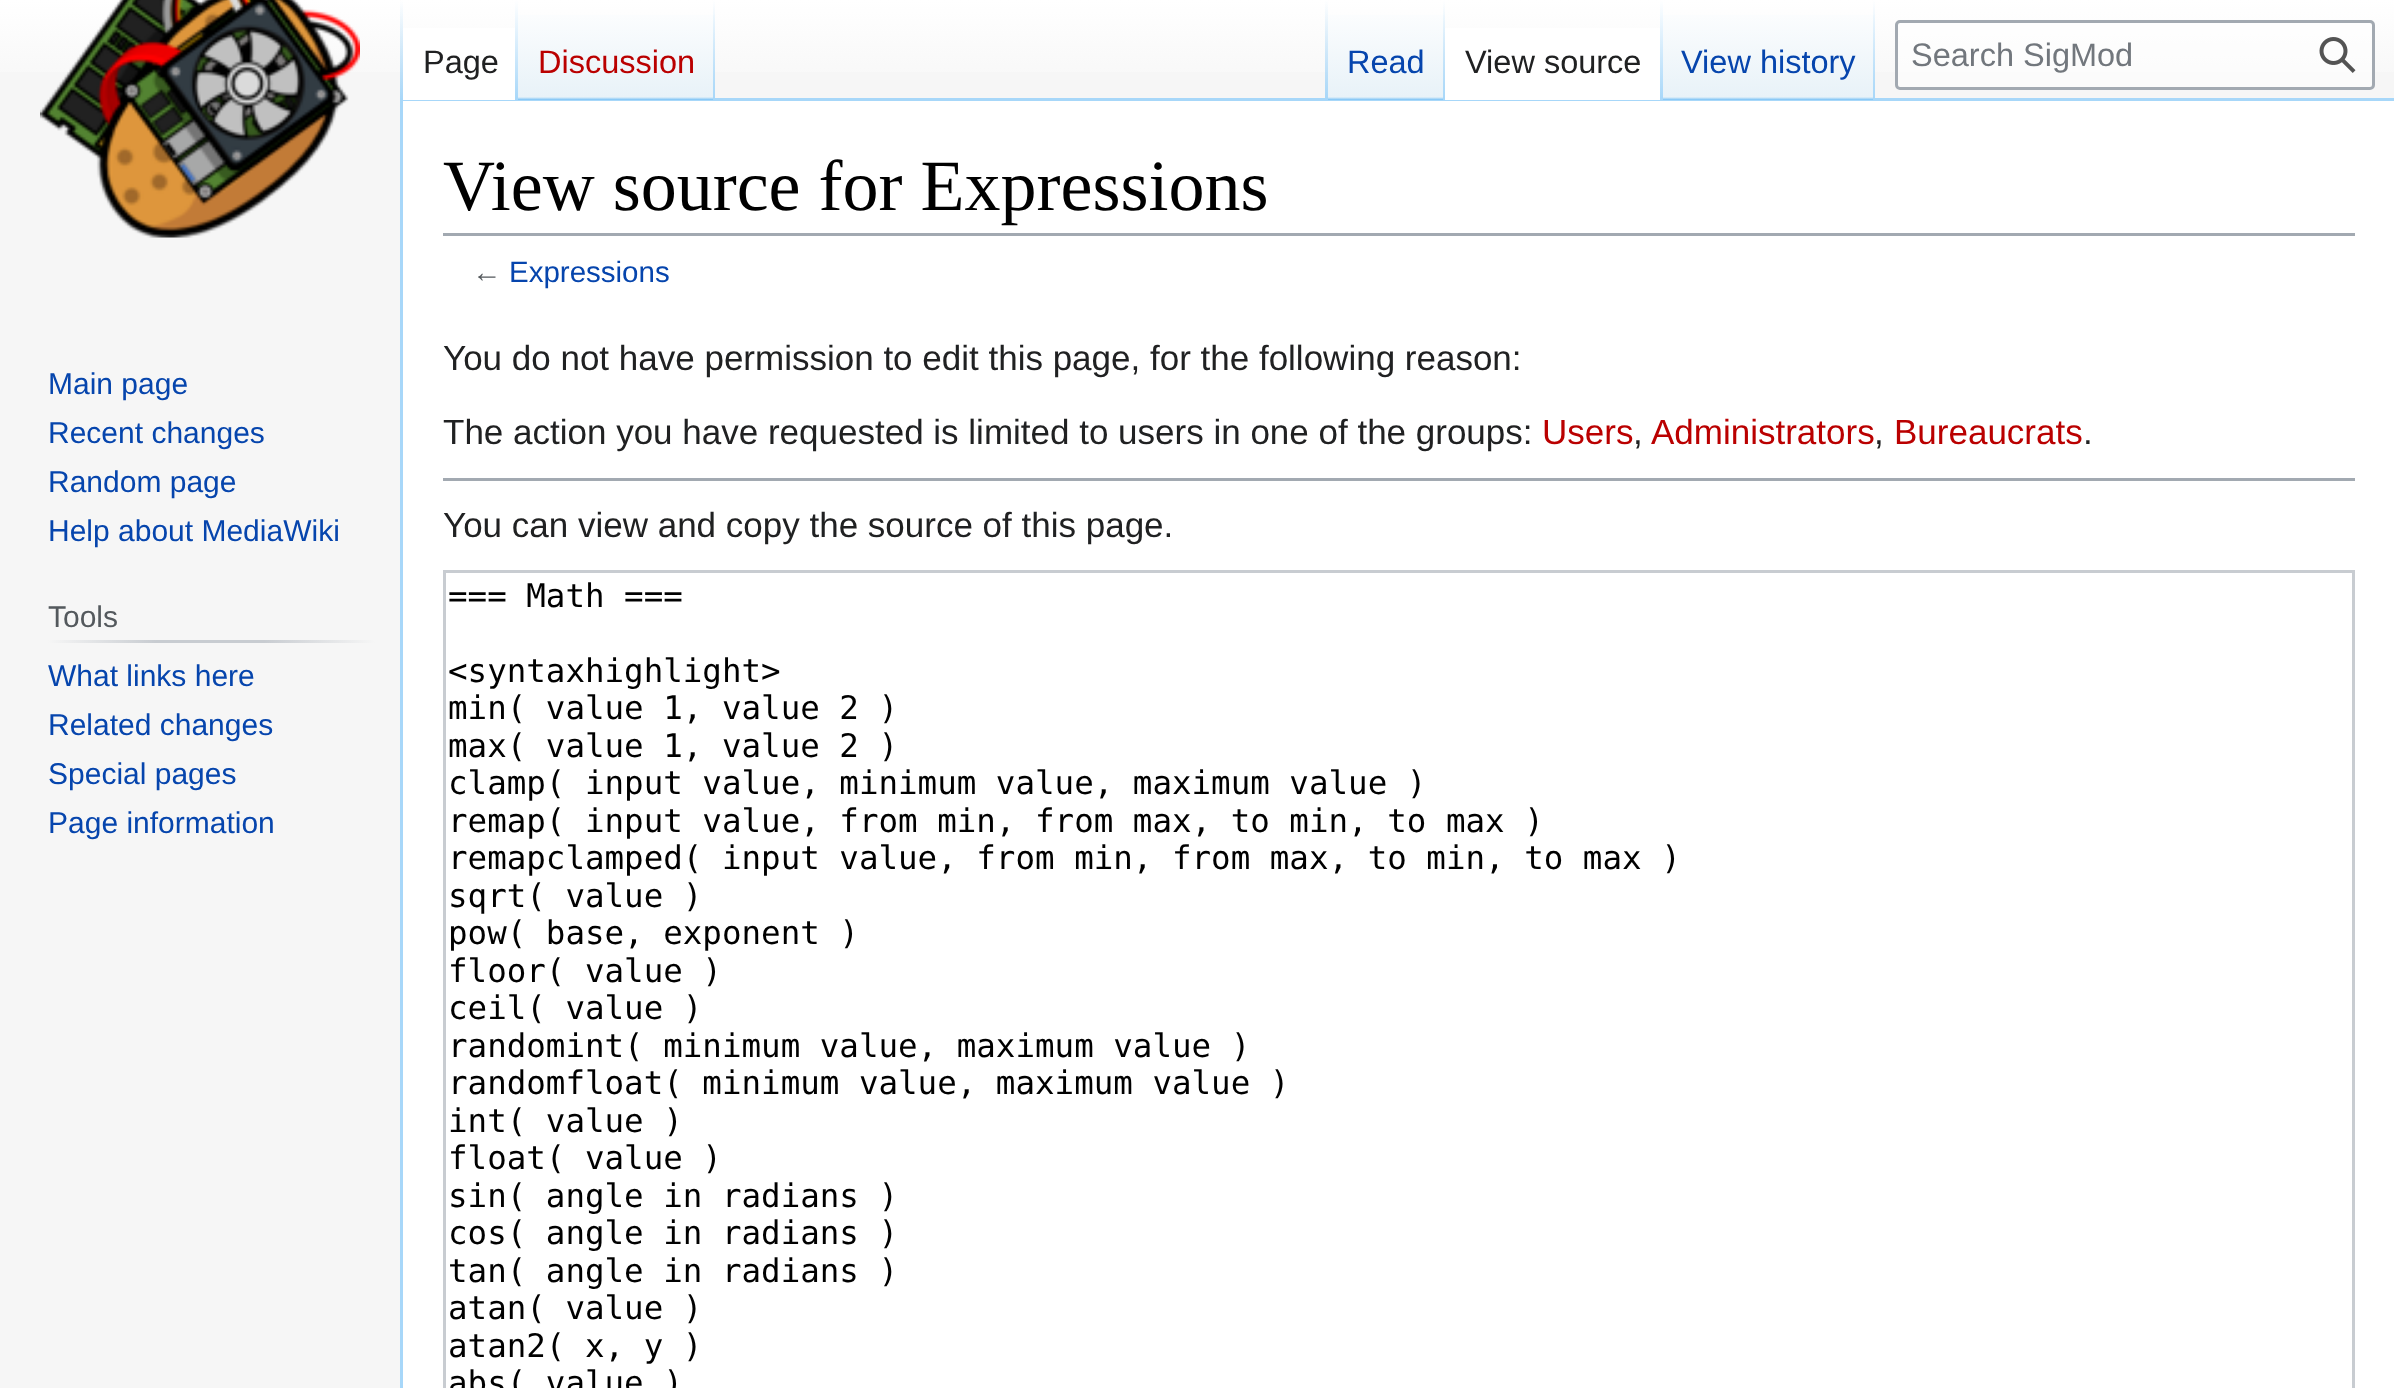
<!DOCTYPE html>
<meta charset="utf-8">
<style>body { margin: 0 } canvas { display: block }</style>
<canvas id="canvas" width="2394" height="1388"></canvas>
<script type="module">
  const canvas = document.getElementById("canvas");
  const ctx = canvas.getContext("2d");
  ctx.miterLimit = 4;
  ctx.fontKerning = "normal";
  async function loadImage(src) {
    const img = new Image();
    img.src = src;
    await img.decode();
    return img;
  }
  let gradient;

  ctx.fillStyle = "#f6f6f6";
  ctx.fillRect(0, 0, 2394, 1388);
  gradient = ctx.createLinearGradient(1198, -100, 1198, 100);
  gradient.addColorStop(0.5, "#ffffff");
  gradient.addColorStop(1, "#f6f6f6");
  ctx.fillStyle = gradient;
  ctx.fillRect(0, 0, 2394, 72);
  ctx.fillStyle = "#a7d7f9";
  ctx.fillRect(400, 98, 1994, 3);
  ctx.fillRect(400, 98, 3, 1290);
  gradient = ctx.createLinearGradient(401, 0, 401, 100);
  gradient.addColorStop(0, "rgba(167, 215, 249, 0)");
  gradient.addColorStop(1, "#a7d7f9");
  ctx.fillStyle = gradient;
  ctx.fillRect(400, 0, 3, 100);
  ctx.fillStyle = "#ffffff";
  ctx.fillRect(403, 28, 112, 72);
  gradient = ctx.createLinearGradient(516, 0, 516, 100);
  gradient.addColorStop(0, "#ffffff");
  gradient.addColorStop(1, "#a7d7f9");
  ctx.fillStyle = gradient;
  ctx.fillRect(515, 0, 3, 100);
  ctx.font = "32.5px Liberation Sans";
  ctx.fillStyle = "#202122";
  ctx.fillText("Page", 423, 73);
  gradient = ctx.createLinearGradient(616, 100, 616, 0);
  gradient.addColorStop(0, "#77c1f6");
  gradient.addColorStop(0.03, "#e8f2f8");
  gradient.addColorStop(1, "#ffffff");
  ctx.fillStyle = gradient;
  ctx.fillRect(518, 15, 197, 85);
  gradient = ctx.createLinearGradient(714, 0, 714, 100);
  gradient.addColorStop(0, "rgba(167, 215, 249, 0)");
  gradient.addColorStop(1, "#a7d7f9");
  ctx.fillStyle = gradient;
  ctx.fillRect(713, 0, 2, 100);
  ctx.fillStyle = "#ba0000";
  ctx.fillText("Discussion", 538, 73);
  gradient = ctx.createLinearGradient(1326, 0, 1326, 100);
  gradient.addColorStop(0, "rgba(167, 215, 249, 0)");
  gradient.addColorStop(1, "#a7d7f9");
  ctx.fillStyle = gradient;
  ctx.fillRect(1325, 0, 3, 100);
  gradient = ctx.createLinearGradient(1386, 100, 1386, 0);
  gradient.addColorStop(0, "#77c1f6");
  gradient.addColorStop(0.03, "#e8f2f8");
  gradient.addColorStop(1, "#ffffff");
  ctx.fillStyle = gradient;
  ctx.fillRect(1328, 15, 117, 85);
  gradient = ctx.createLinearGradient(1444, 0, 1444, 100);
  gradient.addColorStop(0, "rgba(167, 215, 249, 0)");
  gradient.addColorStop(1, "#a7d7f9");
  ctx.fillStyle = gradient;
  ctx.fillRect(1443, 0, 2, 100);
  ctx.fillStyle = "#0645ad";
  ctx.fillText("Read", 1347, 73);
  ctx.fillStyle = "#ffffff";
  ctx.fillRect(1445, 28, 215, 72);
  gradient = ctx.createLinearGradient(1661, 0, 1661, 100);
  gradient.addColorStop(0, "#ffffff");
  gradient.addColorStop(1, "#a7d7f9");
  ctx.fillStyle = gradient;
  ctx.fillRect(1660, 0, 3, 100);
  ctx.fillStyle = "#202122";
  ctx.fillText("View source", 1465, 73);
  gradient = ctx.createLinearGradient(1769, 100, 1769, 0);
  gradient.addColorStop(0, "#77c1f6");
  gradient.addColorStop(0.03, "#e8f2f8");
  gradient.addColorStop(1, "#ffffff");
  ctx.fillStyle = gradient;
  ctx.fillRect(1663, 15, 212, 85);
  gradient = ctx.createLinearGradient(1874, 0, 1874, 100);
  gradient.addColorStop(0, "rgba(167, 215, 249, 0)");
  gradient.addColorStop(1, "#a7d7f9");
  ctx.fillStyle = gradient;
  ctx.fillRect(1873, 0, 2, 100);
  ctx.fillStyle = "#0645ad";
  ctx.fillText("View history", 1681, 73);
  ctx.fillStyle = "rgba(255, 255, 255, 0.5)";
  ctx.beginPath();
  ctx.roundRect(1896.5, 21.5, 477, 67, 3.5);
  ctx.fill();
  ctx.strokeStyle = "#a2a9b1";
  ctx.lineWidth = 3;
  ctx.stroke();
  ctx.fillStyle = "#72777d";
  ctx.fillText("Search SigMod", 1911, 66);
  ctx.drawImage(await loadImage("img1.png"), 2319, 37, 37, 36);
  ctx.drawImage(await loadImage("img2.png"), 40, 0, 320, 238);
  ctx.font = "30px Liberation Sans";
  ctx.fillStyle = "#0645ad";
  ctx.fillText("Main page", 48, 394);
  ctx.fillText("Recent changes", 48, 443);
  ctx.fillText("Random page", 48, 492);
  ctx.fillText("Help about MediaWiki", 48, 541);
  gradient = ctx.createLinearGradient(48, 641, 375, 641);
  gradient.addColorStop(0, "#f6f6f6");
  gradient.addColorStop(0.33, "#c8ccd1");
  gradient.addColorStop(0.66, "#c8ccd1");
  gradient.addColorStop(1, "#f6f6f6");
  ctx.fillStyle = gradient;
  ctx.fillRect(48, 640, 327, 3);
  ctx.fillStyle = "#54595d";
  ctx.fillText("Tools", 48, 627);
  ctx.fillStyle = "#0645ad";
  ctx.fillText("What links here", 48, 686);
  ctx.fillText("Related changes", 48, 735);
  ctx.fillText("Special pages", 48, 784);
  ctx.fillText("Page information", 48, 833);
  ctx.fillStyle = "#ffffff";
  ctx.fillRect(403, 101, 1991, 1287);
  ctx.fillStyle = "#a2a9b1";
  ctx.fillRect(443, 233, 1912, 3);
  ctx.font = "72px Liberation Serif";
  ctx.fillStyle = "#000000";
  ctx.fillText("View source for Expressions", 443, 210);
  ctx.font = "29.5px Liberation Sans";
  ctx.fillStyle = "#54595d";
  ctx.fillText("←", 472, 282);
  ctx.fillStyle = "#0645ad";
  ctx.fillText("Expressions", 509, 282);
  ctx.font = "35px Liberation Sans";
  ctx.fillStyle = "#202122";
  ctx.fillText("You do not have permission to edit this page, for the following reason:", 443, 370);
  ctx.fillText("The action you have requested is limited to users in one of the groups:", 443, 444);
  ctx.fillStyle = "#ba0000";
  ctx.fillText("Users", 1542, 444);
  ctx.fillStyle = "#202122";
  ctx.fillText(",", 1633, 444);
  ctx.fillStyle = "#ba0000";
  ctx.fillText("Administrators", 1651, 444);
  ctx.fillStyle = "#202122";
  ctx.fillText(",", 1874, 444);
  ctx.fillStyle = "#ba0000";
  ctx.fillText("Bureaucrats", 1894, 444);
  ctx.fillStyle = "#202122";
  ctx.fillText(".", 2083, 444);
  ctx.fillStyle = "#a2a9b1";
  ctx.fillRect(443, 478, 1912, 3);
  ctx.fillStyle = "#202122";
  ctx.fillText("You can view and copy the source of this page.", 443, 537);
  ctx.strokeStyle = "#c8ccd1";
  ctx.strokeRect(444.5, 571.5, 1909, 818);
  ctx.font = "32.5px DejaVu Sans Mono";
  ctx.fillStyle = "#000000";
  ctx.fillText("=== Math ===", 448, 607);
  ctx.fillText("<syntaxhighlight>", 448, 682);
  ctx.fillText("min( value 1, value 2 )", 448, 719);
  ctx.fillText("max( value 1, value 2 )", 448, 757);
  ctx.fillText("clamp( input value, minimum value, maximum value )", 448, 794);
  ctx.fillText("remap( input value, from min, from max, to min, to max )", 448, 832);
  ctx.fillText("remapclamped( input value, from min, from max, to min, to max )", 448, 869);
  ctx.fillText("sqrt( value )", 448, 907);
  ctx.fillText("pow( base, exponent )", 448, 944);
  ctx.fillText("floor( value )", 448, 982);
  ctx.fillText("ceil( value )", 448, 1019);
  ctx.fillText("randomint( minimum value, maximum value )", 448, 1057);
  ctx.fillText("randomfloat( minimum value, maximum value )", 448, 1094);
  ctx.fillText("int( value )", 448, 1132);
  ctx.fillText("float( value )", 448, 1169);
  ctx.fillText("sin( angle in radians )", 448, 1207);
  ctx.fillText("cos( angle in radians )", 448, 1244);
  ctx.fillText("tan( angle in radians )", 448, 1282);
  ctx.fillText("atan( value )", 448, 1319);
  ctx.fillText("atan2( x, y )", 448, 1357);
  ctx.fillText("abs( value )", 448, 1394);
</script>
